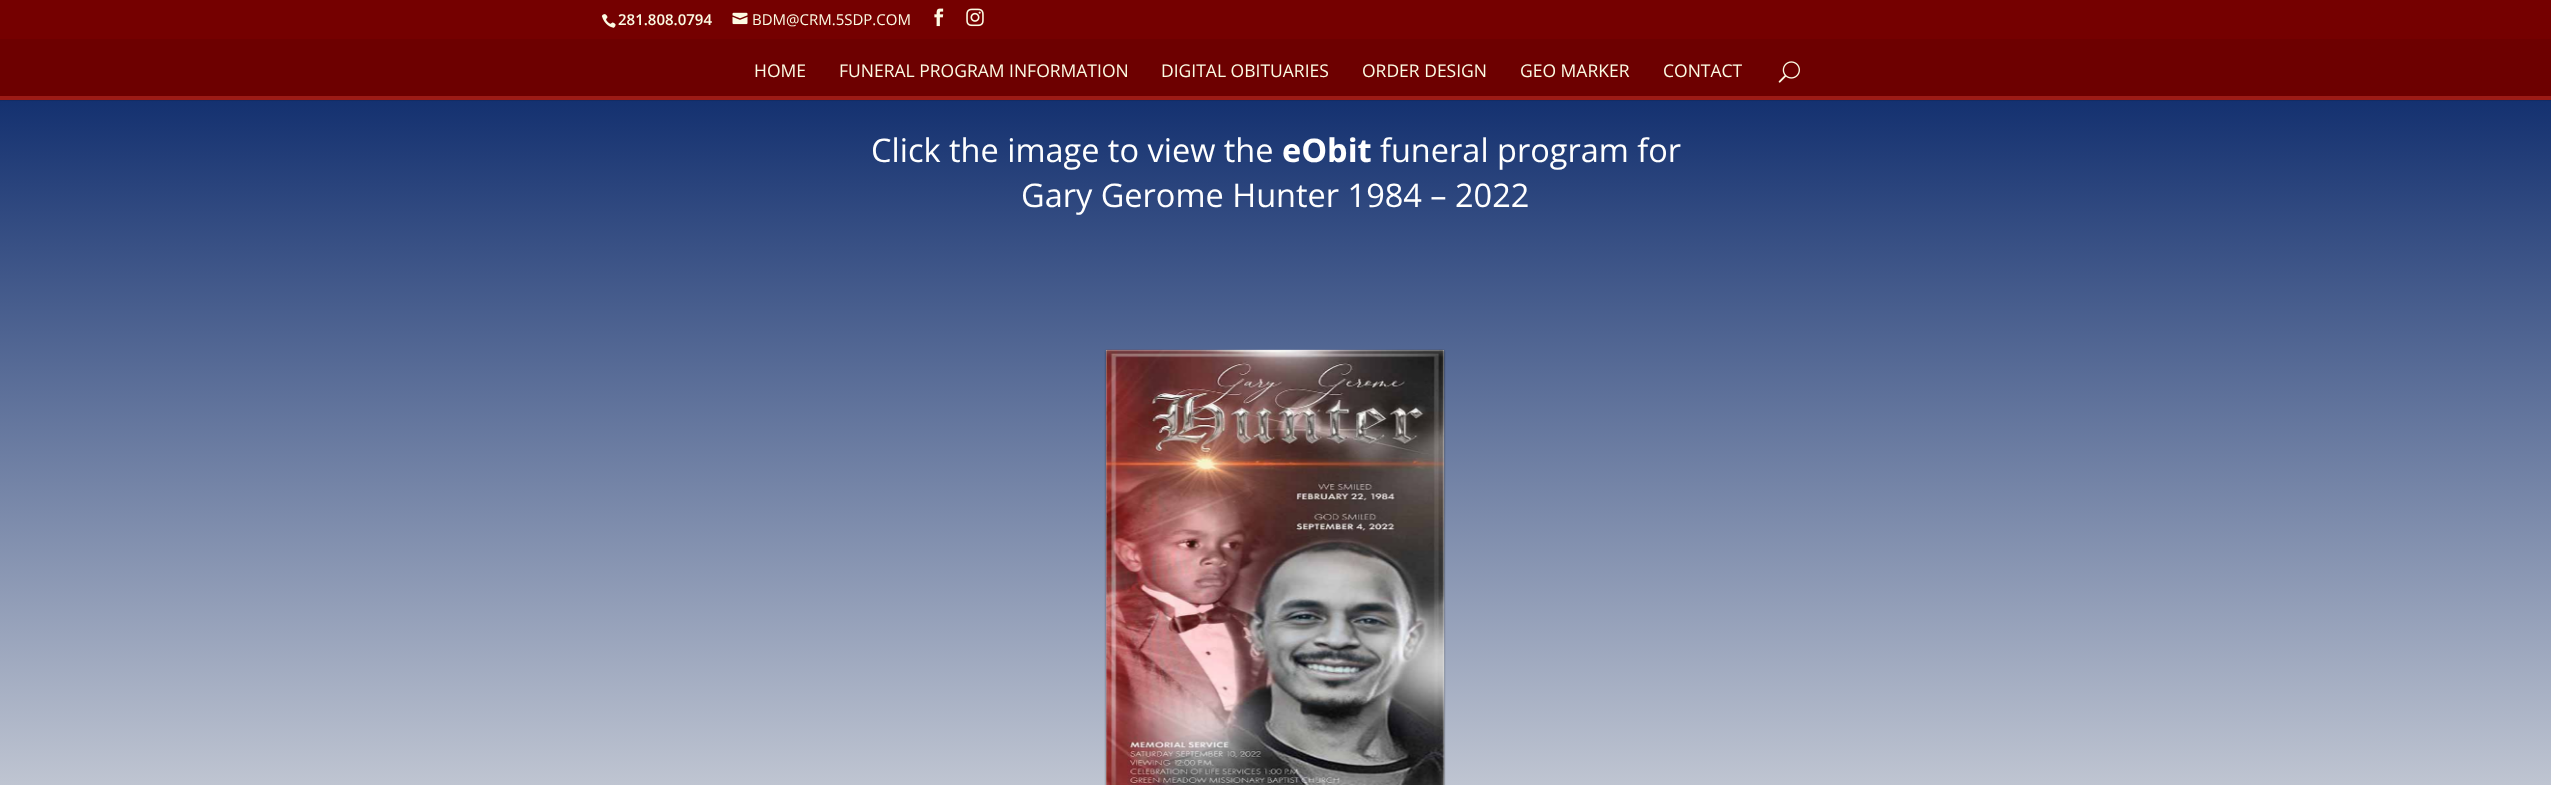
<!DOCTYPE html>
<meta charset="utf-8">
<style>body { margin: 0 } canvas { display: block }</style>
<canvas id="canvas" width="2551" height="785"></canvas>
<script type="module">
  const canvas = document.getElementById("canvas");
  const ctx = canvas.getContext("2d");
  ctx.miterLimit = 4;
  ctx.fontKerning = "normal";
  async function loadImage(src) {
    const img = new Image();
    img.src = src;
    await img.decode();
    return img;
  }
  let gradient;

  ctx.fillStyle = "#750000";
  ctx.fillRect(0, 0, 2551, 785);
  ctx.drawImage(await loadImage("img1.png"), 601, 14, 15, 14);
  ctx.font = "600 15px Open Sans";
  ctx.fillStyle = "#fcfbe3";
  ctx.fillText("281.808.0794", 618, 25);
  ctx.drawImage(await loadImage("img2.png"), 732, 12, 16, 13);
  ctx.font = "15px Open Sans";
  ctx.fillText("BDM@CRM.5SDP.COM", 752, 25);
  ctx.drawImage(await loadImage("img3.png"), 934, 8, 10, 19);
  ctx.drawImage(await loadImage("img4.png"), 966, 8, 18, 19);
  ctx.fillStyle = "#122c65";
  ctx.fillRect(0, 100, 2551, 1);
  ctx.fillStyle = "#6d0000";
  ctx.fillRect(0, 39, 2551, 57);
  ctx.fillStyle = "#9c1b16";
  ctx.fillRect(0, 96, 2551, 4);
  ctx.font = "17.5px Open Sans";
  ctx.fillStyle = "#fcfbe3";
  ctx.fillText("HOME", 754, 77);
  ctx.fillText("FUNERAL PROGRAM INFORMATION", 839, 77);
  ctx.fillText("DIGITAL OBITUARIES", 1161, 77);
  ctx.fillText("ORDER DESIGN", 1362, 77);
  ctx.fillText("GEO MARKER", 1520, 77);
  ctx.fillText("CONTACT", 1663, 77);
  ctx.drawImage(await loadImage("img5.png"), 1778, 61, 22, 22);
  gradient = ctx.createLinearGradient(1276, 100, 1276, 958);
  gradient.addColorStop(0, "#143170");
  gradient.addColorStop(1, "#eaeaea");
  ctx.fillStyle = gradient;
  ctx.fillRect(0, 101, 2551, 684);
  ctx.font = "32.5px Open Sans";
  ctx.fillStyle = "#ffffff";
  ctx.fillText("Click the image to view the", 871, 162);
  ctx.font = "bold 32.5px Open Sans";
  ctx.fillText("eObit", 1282, 162);
  ctx.font = "32.5px Open Sans";
  ctx.fillText("funeral program for", 1380, 162);
  ctx.fillText("Gary Gerome Hunter 1984 – 2022", 1021, 207);
  ctx.fillStyle = "rgba(0, 0, 0, 0.22)";
  ctx.filter = "blur(1px)";
  ctx.beginPath();
  ctx.rect(1106, 351, 338, 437);
  ctx.fill();
  ctx.filter = "none";
  ctx.filter = "blur(1px)";
  ctx.beginPath();
  ctx.rect(1106, 351, 338, 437);
  ctx.fill();
  ctx.filter = "none";
  ctx.fillStyle = "#eeeeee";
  ctx.fillRect(1106, 350, 338, 435);
  ctx.drawImage(await loadImage("img6.png"), 1106, 349, 339, 436);
</script>
